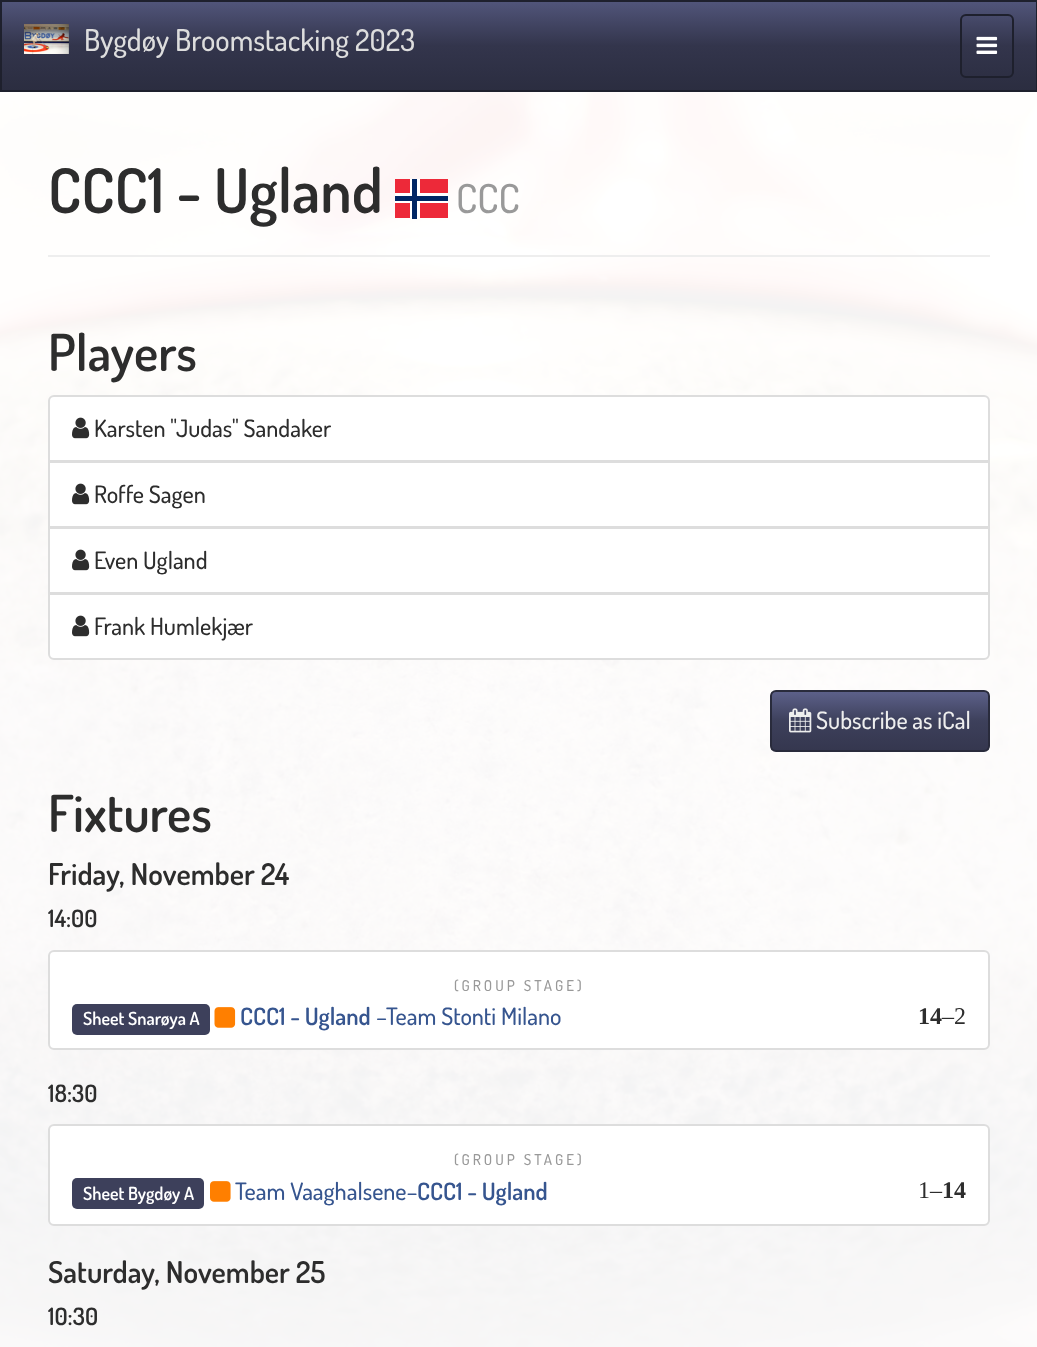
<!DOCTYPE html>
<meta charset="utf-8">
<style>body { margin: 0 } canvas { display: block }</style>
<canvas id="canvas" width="1037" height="1347"></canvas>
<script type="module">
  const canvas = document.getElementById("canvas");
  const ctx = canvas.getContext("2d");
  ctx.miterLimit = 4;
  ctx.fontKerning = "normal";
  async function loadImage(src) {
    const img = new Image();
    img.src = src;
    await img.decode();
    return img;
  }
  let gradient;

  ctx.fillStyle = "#ffffff";
  ctx.fillRect(0, 0, 1037, 1347);
  ctx.drawImage(await loadImage("img1.png"), 0, 92, 1037, 1255);
  gradient = ctx.createLinearGradient(519, 1.5, 519, 90);
  gradient.addColorStop(0, "#51557a");
  gradient.addColorStop(0.5, "#33354c");
  gradient.addColorStop(1, "#2b2d40");
  ctx.fillStyle = gradient;
  ctx.fillRect(2, 2, 1034, 88);
  ctx.strokeStyle = "#1e202d";
  ctx.lineWidth = 2;
  ctx.strokeRect(1, 1, 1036, 90);
  ctx.drawImage(await loadImage("img2.png"), 24, 24, 45, 30);
  ctx.font = "500 30px Dosis";
  ctx.fillStyle = "#dddddd";
  ctx.fillText("Bygdøy Broomstacking 2023", 84, 51);
  ctx.beginPath();
  ctx.roundRect(961, 15, 52, 62, 5);
  ctx.stroke();
  ctx.drawImage(await loadImage("img3.png"), 976, 36, 22, 18);
  ctx.fillStyle = "#eeeeee";
  ctx.fillRect(48, 255, 942, 2);
  ctx.font = "600 61.5px Dosis";
  ctx.fillStyle = "#2d2d2d";
  ctx.fillText("CCC1 - Ugland", 48, 213);
  ctx.fillStyle = "#ed2939";
  ctx.fillRect(395, 179, 53, 39);
  ctx.fillStyle = "#ffffff";
  ctx.fillRect(410, 179, 10, 39);
  ctx.fillRect(395, 193, 53, 10);
  ctx.fillStyle = "#002664";
  ctx.fillRect(412, 179, 5, 40);
  ctx.fillRect(395, 196, 53, 5);
  ctx.font = "500 40px Dosis";
  ctx.fillStyle = "#999999";
  ctx.fillText("CCC", 456, 213);
  ctx.font = "600 51px Dosis";
  ctx.fillStyle = "#2d2d2d";
  ctx.fillText("Players", 48, 371);
  ctx.fillStyle = "#ffffff";
  ctx.beginPath();
  ctx.roundRect(49, 396, 940, 65, [5, 5, 0, 0]);
  ctx.fill();
  ctx.strokeStyle = "#dddddd";
  ctx.stroke();
  ctx.drawImage(await loadImage("img4.png"), 72, 417, 18, 22);
  ctx.font = "500 24px Dosis";
  ctx.fillStyle = "#2d2d2d";
  ctx.fillText("Karsten \"Judas\" Sandaker", 94, 437);
  ctx.fillStyle = "#ffffff";
  ctx.beginPath();
  ctx.rect(49, 462, 940, 65);
  ctx.fill();
  ctx.stroke();
  ctx.drawImage(await loadImage("img4.png"), 72, 483, 18, 22);
  ctx.fillStyle = "#2d2d2d";
  ctx.fillText("Roffe Sagen", 94, 503);
  ctx.fillStyle = "#ffffff";
  ctx.beginPath();
  ctx.rect(49, 528, 940, 65);
  ctx.fill();
  ctx.stroke();
  ctx.drawImage(await loadImage("img4.png"), 72, 549, 18, 22);
  ctx.fillStyle = "#2d2d2d";
  ctx.fillText("Even Ugland", 94, 569);
  ctx.fillStyle = "#ffffff";
  ctx.beginPath();
  ctx.roundRect(49, 594, 940, 65, [0, 0, 5, 5]);
  ctx.fill();
  ctx.stroke();
  ctx.drawImage(await loadImage("img4.png"), 72, 615, 18, 22);
  ctx.fillStyle = "#2d2d2d";
  ctx.fillText("Frank Humlekjær", 94, 635);
  ctx.save();
  ctx.beginPath();
  ctx.roundRect(770, 690, 220, 62, 6);
  ctx.clip();
  gradient = ctx.createLinearGradient(880, 692, 880, 750);
  gradient.addColorStop(0, "#5c6089");
  gradient.addColorStop(0.5, "#3d405b");
  gradient.addColorStop(1, "#35374f");
  ctx.fillStyle = gradient;
  ctx.fillRect(771, 692, 218, 58);
  ctx.restore();
  ctx.beginPath();
  ctx.roundRect(771, 691, 218, 60, 5);
  ctx.strokeStyle = "#292b3c";
  ctx.stroke();
  ctx.drawImage(await loadImage("img5.png"), 789, 708, 23, 25);
  ctx.fillStyle = "#eeeeee";
  ctx.fillText("Subscribe as iCal", 816, 729);
  ctx.font = "600 51px Dosis";
  ctx.fillStyle = "#2d2d2d";
  ctx.fillText("Fixtures", 48, 832);
  ctx.font = "600 30px Dosis";
  ctx.fillText("Friday, November 24", 48, 885);
  ctx.font = "600 24px Dosis";
  ctx.fillText("14:00", 48, 927);
  ctx.fillStyle = "#ffffff";
  ctx.beginPath();
  ctx.roundRect(49, 951, 940, 98, 5);
  ctx.fill();
  ctx.strokeStyle = "#dddddd";
  ctx.stroke();
  ctx.letterSpacing = "3px";
  ctx.font = "500 15px Dosis";
  ctx.fillStyle = "#999999";
  ctx.fillText("(GROUP STAGE)", 454, 991);
  ctx.fillStyle = "#3d405b";
  ctx.beginPath();
  ctx.roundRect(72, 1004, 138, 31, 5);
  ctx.fill();
  ctx.letterSpacing = "0px";
  ctx.font = "600 18px Dosis";
  ctx.fillStyle = "#ffffff";
  ctx.fillText("Sheet Snarøya A", 83, 1025);
  ctx.drawImage(await loadImage("img6.png"), 214, 1007, 22, 21);
  ctx.font = "600 24px Dosis";
  ctx.fillStyle = "#36558f";
  ctx.fillText("CCC1 - Ugland", 240, 1025);
  ctx.font = "500 24px Dosis";
  ctx.fillText("–", 376, 1025);
  ctx.fillText("Team Stonti Milano", 386, 1025);
  ctx.font = "bold 24px Liberation Serif";
  ctx.fillStyle = "#2d2d2d";
  ctx.fillText("14", 918, 1024);
  ctx.font = "24px Liberation Serif";
  ctx.fillText("–2", 942, 1024);
  ctx.font = "600 24px Dosis";
  ctx.fillText("18:30", 48, 1102);
  ctx.fillStyle = "#ffffff";
  ctx.beginPath();
  ctx.roundRect(49, 1125, 940, 100, 5);
  ctx.fill();
  ctx.stroke();
  ctx.letterSpacing = "3px";
  ctx.font = "500 15px Dosis";
  ctx.fillStyle = "#999999";
  ctx.fillText("(GROUP STAGE)", 454, 1165);
  ctx.fillStyle = "#3d405b";
  ctx.beginPath();
  ctx.roundRect(72, 1178, 132, 31, 5);
  ctx.fill();
  ctx.letterSpacing = "0px";
  ctx.font = "600 18px Dosis";
  ctx.fillStyle = "#ffffff";
  ctx.fillText("Sheet Bygdøy A", 83, 1200);
  ctx.drawImage(await loadImage("img7.png"), 210, 1181, 21, 21);
  ctx.font = "500 24px Dosis";
  ctx.fillStyle = "#36558f";
  ctx.fillText("Team Vaaghalsene–", 235, 1200);
  ctx.font = "600 24px Dosis";
  ctx.fillText("CCC1 - Ugland", 417, 1200);
  ctx.font = "24px Liberation Serif";
  ctx.fillStyle = "#2d2d2d";
  ctx.fillText("1–", 918, 1198);
  ctx.font = "bold 24px Liberation Serif";
  ctx.fillText("14", 942, 1198);
  ctx.font = "600 30px Dosis";
  ctx.fillText("Saturday, November 25", 48, 1283);
  ctx.font = "600 24px Dosis";
  ctx.fillText("10:30", 48, 1325);
</script>
